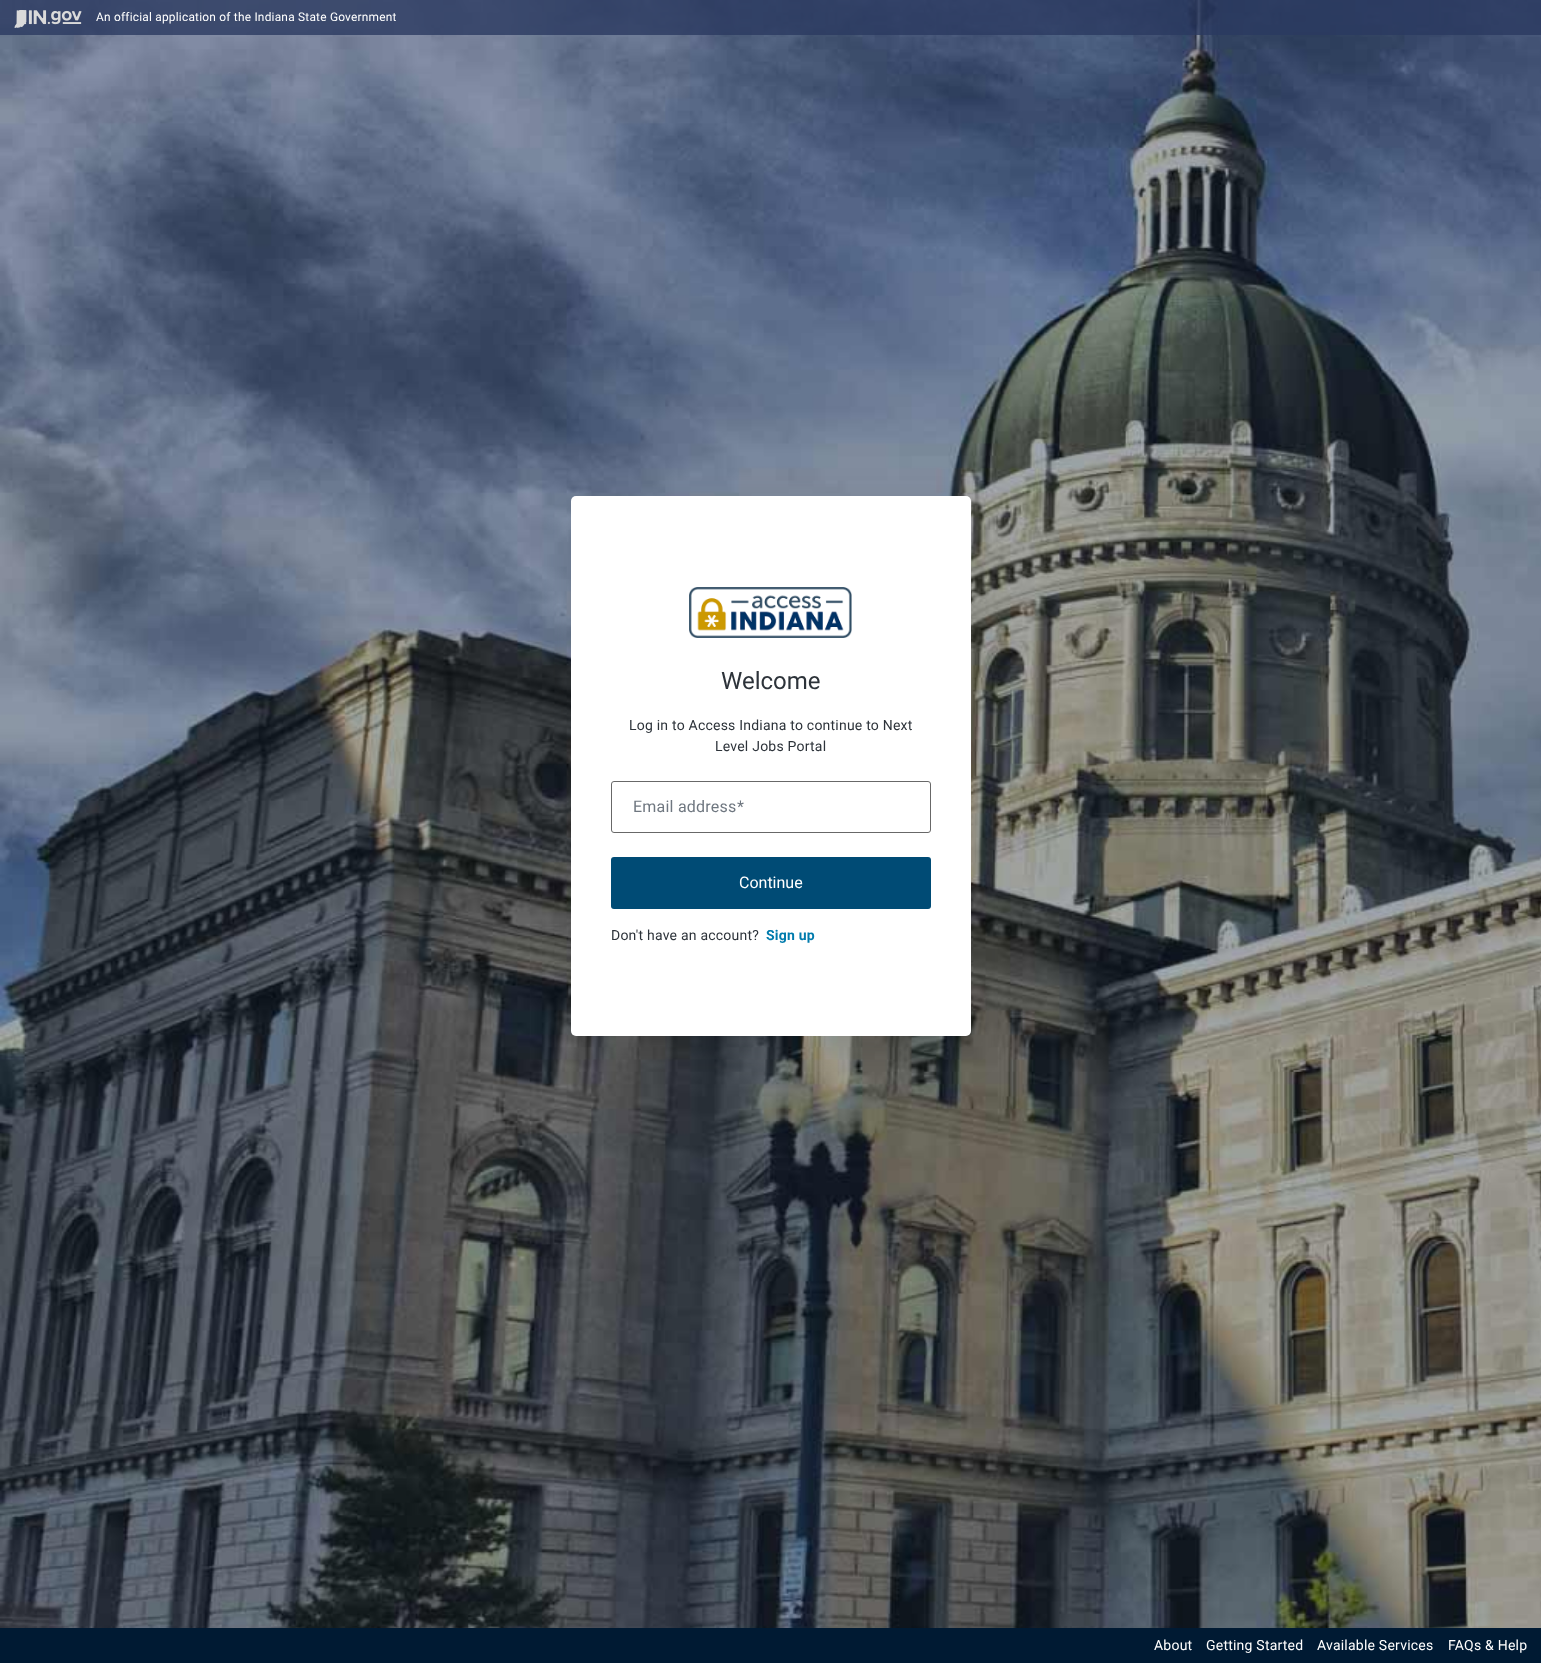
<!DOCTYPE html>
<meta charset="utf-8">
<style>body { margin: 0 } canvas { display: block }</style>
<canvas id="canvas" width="1541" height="1663"></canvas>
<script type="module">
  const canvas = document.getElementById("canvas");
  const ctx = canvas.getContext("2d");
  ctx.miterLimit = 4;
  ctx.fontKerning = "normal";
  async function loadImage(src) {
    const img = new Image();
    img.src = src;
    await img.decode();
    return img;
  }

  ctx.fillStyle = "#ffffff";
  ctx.fillRect(0, 0, 1541, 1663);
  ctx.drawImage(await loadImage("img1.png"), 0, 0, 1541, 1628);
  ctx.fillStyle = "rgba(43, 58, 96, 0.8)";
  ctx.fillRect(0, 0, 1541, 35);
  ctx.drawImage(await loadImage("img2.png"), 14, 10, 68, 18);
  ctx.letterSpacing = "0.22px";
  ctx.font = "11.9px Roboto";
  ctx.fillStyle = "#ffffff";
  ctx.fillText("An official application of the Indiana State Government", 96, 21);
  ctx.fillStyle = "rgba(0, 0, 0, 0.12)";
  ctx.filter = "blur(20px)";
  ctx.beginPath();
  ctx.roundRect(571, 508, 400, 540, 5);
  ctx.fill();
  ctx.filter = "none";
  ctx.fillStyle = "#ffffff";
  ctx.beginPath();
  ctx.roundRect(571, 496, 400, 540, 5);
  ctx.fill();
  ctx.drawImage(await loadImage("img3.png"), 689, 587, 163, 51);
  ctx.letterSpacing = "0px";
  ctx.font = "24px Roboto";
  ctx.fillStyle = "#2d333a";
  ctx.fillText("Welcome", 721, 689);
  ctx.letterSpacing = "0.22px";
  ctx.font = "14px Roboto";
  ctx.fillText("Log in to Access Indiana to continue to Next", 629, 730);
  ctx.fillText("Level Jobs Portal", 715, 751);
  ctx.beginPath();
  ctx.roundRect(611.5, 781.5, 319, 51, 2.5);
  ctx.strokeStyle = "#686868";
  ctx.stroke();
  ctx.font = "16px Roboto";
  ctx.fillStyle = "#6f7780";
  ctx.fillText("Email address", 633, 812);
  ctx.fillText("*", 737, 812);
  ctx.fillStyle = "#004b75";
  ctx.beginPath();
  ctx.roundRect(611, 857, 320, 52, 3);
  ctx.fill();
  ctx.letterSpacing = "0px";
  ctx.fillStyle = "#ffffff";
  ctx.fillText("Continue", 739, 888);
  ctx.letterSpacing = "0.22px";
  ctx.font = "14px Roboto";
  ctx.fillStyle = "#2d333a";
  ctx.fillText("Don't have an account?", 611, 940);
  ctx.font = "bold 14px Roboto";
  ctx.fillStyle = "#007bad";
  ctx.fillText("Sign up", 766, 940);
  ctx.fillStyle = "#001a33";
  ctx.fillRect(0, 1628, 1541, 35);
  ctx.font = "14px Roboto";
  ctx.fillStyle = "#ffffff";
  ctx.fillText("About", 1154, 1650);
  ctx.fillText("Getting Started", 1206, 1650);
  ctx.fillText("Available Services", 1317, 1650);
  ctx.fillText("FAQs & Help", 1448, 1650);
</script>
